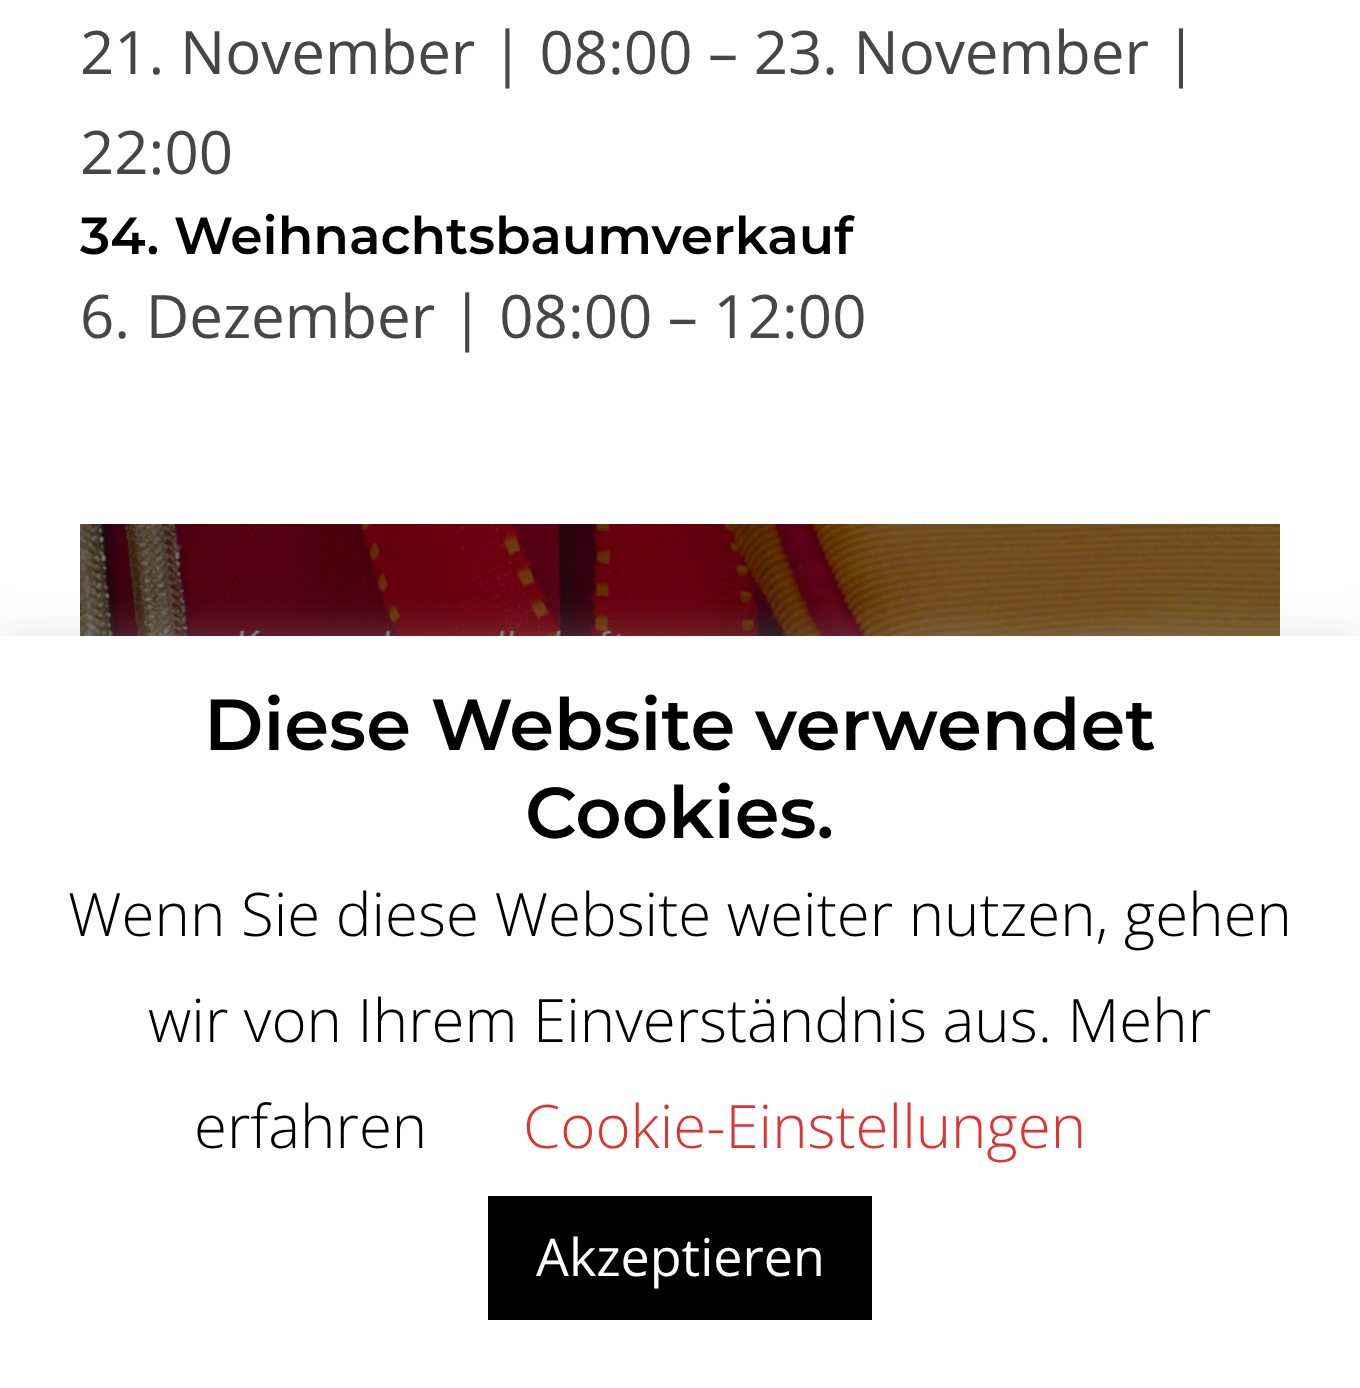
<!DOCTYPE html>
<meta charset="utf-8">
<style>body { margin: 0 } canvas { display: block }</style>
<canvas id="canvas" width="1360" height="1388"></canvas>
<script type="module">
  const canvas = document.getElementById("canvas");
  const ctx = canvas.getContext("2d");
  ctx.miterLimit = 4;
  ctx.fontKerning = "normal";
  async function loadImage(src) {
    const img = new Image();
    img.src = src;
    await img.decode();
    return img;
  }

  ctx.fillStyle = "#ffffff";
  ctx.fillRect(0, 0, 1360, 1388);
  ctx.font = "60px Open Sans";
  ctx.fillStyle = "#464646";
  ctx.fillText("21. November | 08:00 – 23. November |", 80, 74);
  ctx.fillText("22:00", 80, 174);
  ctx.font = "600 52px Montserrat";
  ctx.fillStyle = "#000000";
  ctx.fillText("34. Weihnachtsbaumverkauf", 80, 254);
  ctx.font = "60px Open Sans";
  ctx.fillStyle = "#464646";
  ctx.fillText("6. Dezember | 08:00 – 12:00", 80, 338);
  ctx.drawImage(await loadImage("img1.png"), 80, 524, 1200, 112);
  ctx.fillStyle = "rgba(172, 171, 171, 0.3)";
  ctx.filter = "blur(20px)";
  ctx.beginPath();
  ctx.rect(0, 632, 1360, 752);
  ctx.fill();
  ctx.filter = "none";
  ctx.fillStyle = "#ffffff";
  ctx.fillRect(0, 636, 1360, 752);
  ctx.font = "600 72px Montserrat";
  ctx.fillStyle = "#000000";
  ctx.fillText("Diese Website verwendet", 204, 750);
  ctx.fillText("Cookies.", 525, 838);
  ctx.font = "300 60px Open Sans";
  ctx.fillText("Wenn Sie diese Website weiter nutzen, gehen", 68, 936);
  ctx.fillText("wir von Ihrem Einverständnis aus. Mehr", 148, 1042);
  ctx.fillText("erfahren", 194, 1148);
  ctx.fillStyle = "#dd3333";
  ctx.fillText("Cookie-Einstellungen", 523, 1148);
  ctx.fillStyle = "#000000";
  ctx.fillRect(488, 1196, 384, 124);
  ctx.font = "52px Open Sans";
  ctx.fillStyle = "#ffffff";
  ctx.fillText("Akzeptieren", 536, 1276);
</script>
